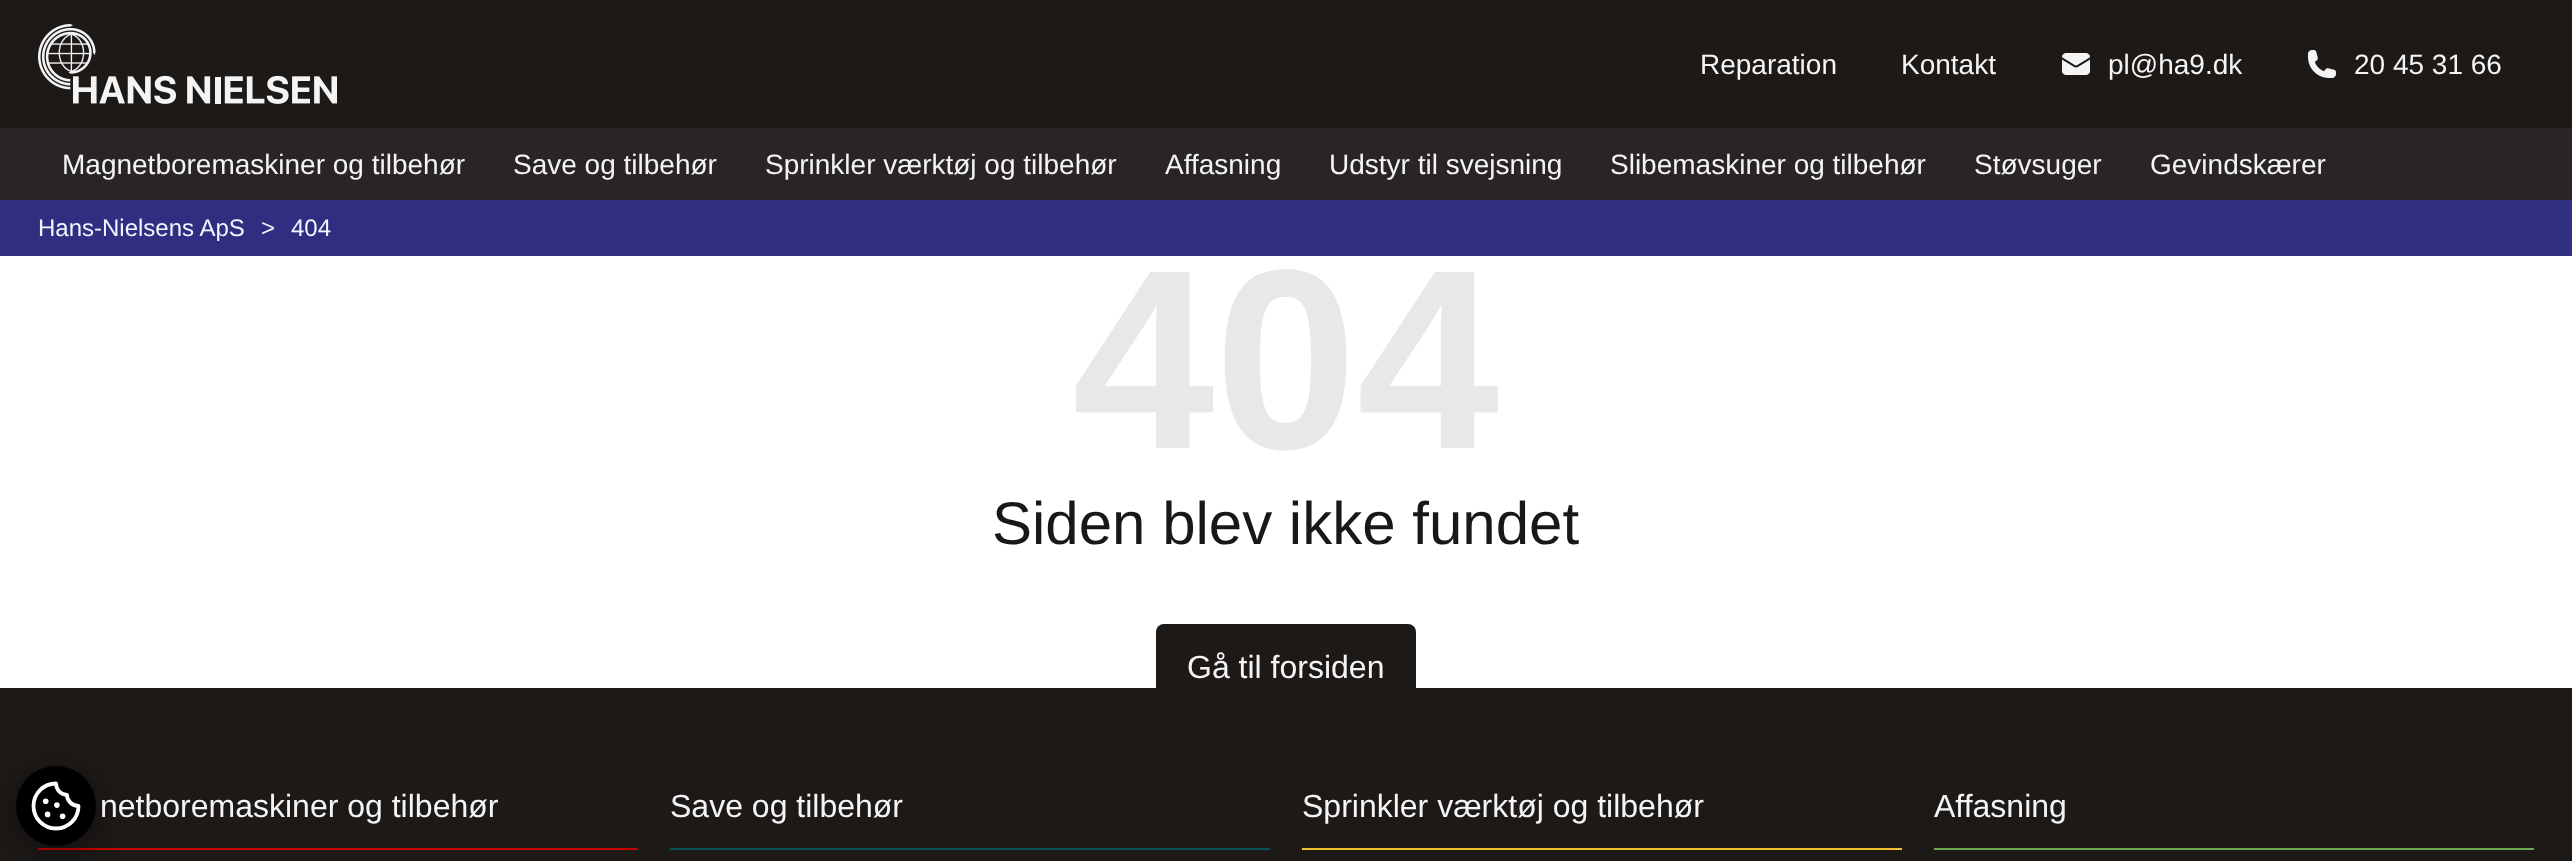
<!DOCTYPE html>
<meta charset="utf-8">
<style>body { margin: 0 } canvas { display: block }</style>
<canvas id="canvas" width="2572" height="861"></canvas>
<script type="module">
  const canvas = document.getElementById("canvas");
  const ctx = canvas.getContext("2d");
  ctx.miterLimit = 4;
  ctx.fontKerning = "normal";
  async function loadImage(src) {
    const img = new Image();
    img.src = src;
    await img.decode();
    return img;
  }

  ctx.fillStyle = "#ffffff";
  ctx.fillRect(0, 0, 2572, 861);
  ctx.fillStyle = "#1c1917";
  ctx.fillRect(0, 0, 2572, 128);
  ctx.drawImage(await loadImage("img1.png"), 38, 24, 299, 80);
  ctx.font = "28px Liberation Sans";
  ctx.fillStyle = "#f4f4f5";
  ctx.fillText("Reparation", 1700, 74);
  ctx.fillText("Kontakt", 1901, 74);
  ctx.drawImage(await loadImage("img2.png"), 2062, 53, 28, 22);
  ctx.fillText("pl@ha9.dk", 2108, 74);
  ctx.drawImage(await loadImage("img3.png"), 2308, 50, 28, 28);
  ctx.fillText("20 45 31 66", 2354, 74);
  ctx.fillStyle = "#292524";
  ctx.fillRect(0, 128, 2572, 72);
  ctx.fillStyle = "#f4f4f5";
  ctx.fillText("Magnetboremaskiner og tilbehør", 62, 174);
  ctx.fillText("Save og tilbehør", 513, 174);
  ctx.fillText("Sprinkler værktøj og tilbehør", 765, 174);
  ctx.fillText("Affasning", 1165, 174);
  ctx.fillText("Udstyr til svejsning", 1329, 174);
  ctx.fillText("Slibemaskiner og tilbehør", 1610, 174);
  ctx.fillText("Støvsuger", 1974, 174);
  ctx.fillText("Gevindskærer", 2150, 174);
  ctx.fillStyle = "#312e81";
  ctx.fillRect(0, 200, 2572, 56);
  ctx.font = "24px Liberation Sans";
  ctx.fillStyle = "#eff6ff";
  ctx.fillText("Hans-Nielsens ApS", 38, 236);
  ctx.fillText(">", 261, 236);
  ctx.fillText("404", 291, 236);
  ctx.font = "bold 256px Liberation Sans";
  ctx.fillStyle = "#e8e8e8";
  ctx.fillText("404", 1072, 448);
  ctx.font = "60px Liberation Sans";
  ctx.fillStyle = "#18181b";
  ctx.fillText("Siden blev ikke fundet", 992, 544);
  ctx.fillStyle = "#1c1917";
  ctx.fillRect(0, 688, 2572, 173);
  ctx.beginPath();
  ctx.roundRect(1156, 624, 260, 88, 8);
  ctx.fill();
  ctx.font = "32px Liberation Sans";
  ctx.fillStyle = "#f4f4f5";
  ctx.fillText("Gå til forsiden", 1187, 678);
  ctx.fillStyle = "#ca0101";
  ctx.fillRect(38, 848, 600, 2);
  ctx.fillStyle = "rgba(0, 0, 0, 0.4)";
  ctx.filter = "blur(16px)";
  ctx.beginPath();
  ctx.roundRect(16, 774, 80, 80, 40);
  ctx.fill();
  ctx.filter = "none";
  ctx.fillStyle = "#000000";
  ctx.beginPath();
  ctx.arc(56, 806, 40, 0, Math.PI * 2);
  ctx.fill();
  ctx.fillStyle = "#ffffff";
  ctx.beginPath();
  ctx.arc(62.6, 816.3, 2.8, 0, Math.PI * 2);
  ctx.fill();
  ctx.beginPath();
  ctx.arc(47.6, 814.4, 2.8, 0, Math.PI * 2);
  ctx.fill();
  ctx.beginPath();
  ctx.arc(45.7, 801.3, 2.8, 0, Math.PI * 2);
  ctx.fill();
  ctx.beginPath();
  ctx.arc(56.9, 805.1, 2.8, 0, Math.PI * 2);
  ctx.fill();
  ctx.beginPath();
  ctx.moveTo(78.5, 806);
  ctx.bezierCurveTo(72.5, 806, 67, 801, 67, 795);
  ctx.bezierCurveTo(61, 795, 56, 789.5, 56, 783.5);
  ctx.bezierCurveTo(43.5, 783.5, 33.5, 793.5, 33.5, 806);
  ctx.bezierCurveTo(33.5, 818.5, 43.5, 828.5, 56, 828.5);
  ctx.bezierCurveTo(68.5, 828.5, 78.5, 818.5, 78.5, 806);
  ctx.closePath();
  ctx.strokeStyle = "#ffffff";
  ctx.lineWidth = 3.8;
  ctx.lineCap = "round";
  ctx.lineJoin = "round";
  ctx.stroke();
  ctx.fillStyle = "#f4f4f5";
  ctx.fillText("netboremaskiner og tilbehør", 100, 817);
  ctx.fillText("Save og tilbehør", 670, 817);
  ctx.fillStyle = "#0b4f5a";
  ctx.fillRect(670, 848, 600, 2);
  ctx.fillStyle = "#f4f4f5";
  ctx.fillText("Sprinkler værktøj og tilbehør", 1302, 817);
  ctx.fillStyle = "#f1c232";
  ctx.fillRect(1302, 848, 600, 2);
  ctx.fillStyle = "#f4f4f5";
  ctx.fillText("Affasning", 1934, 817);
  ctx.fillStyle = "#6aa84f";
  ctx.fillRect(1934, 848, 600, 2);
</script>
